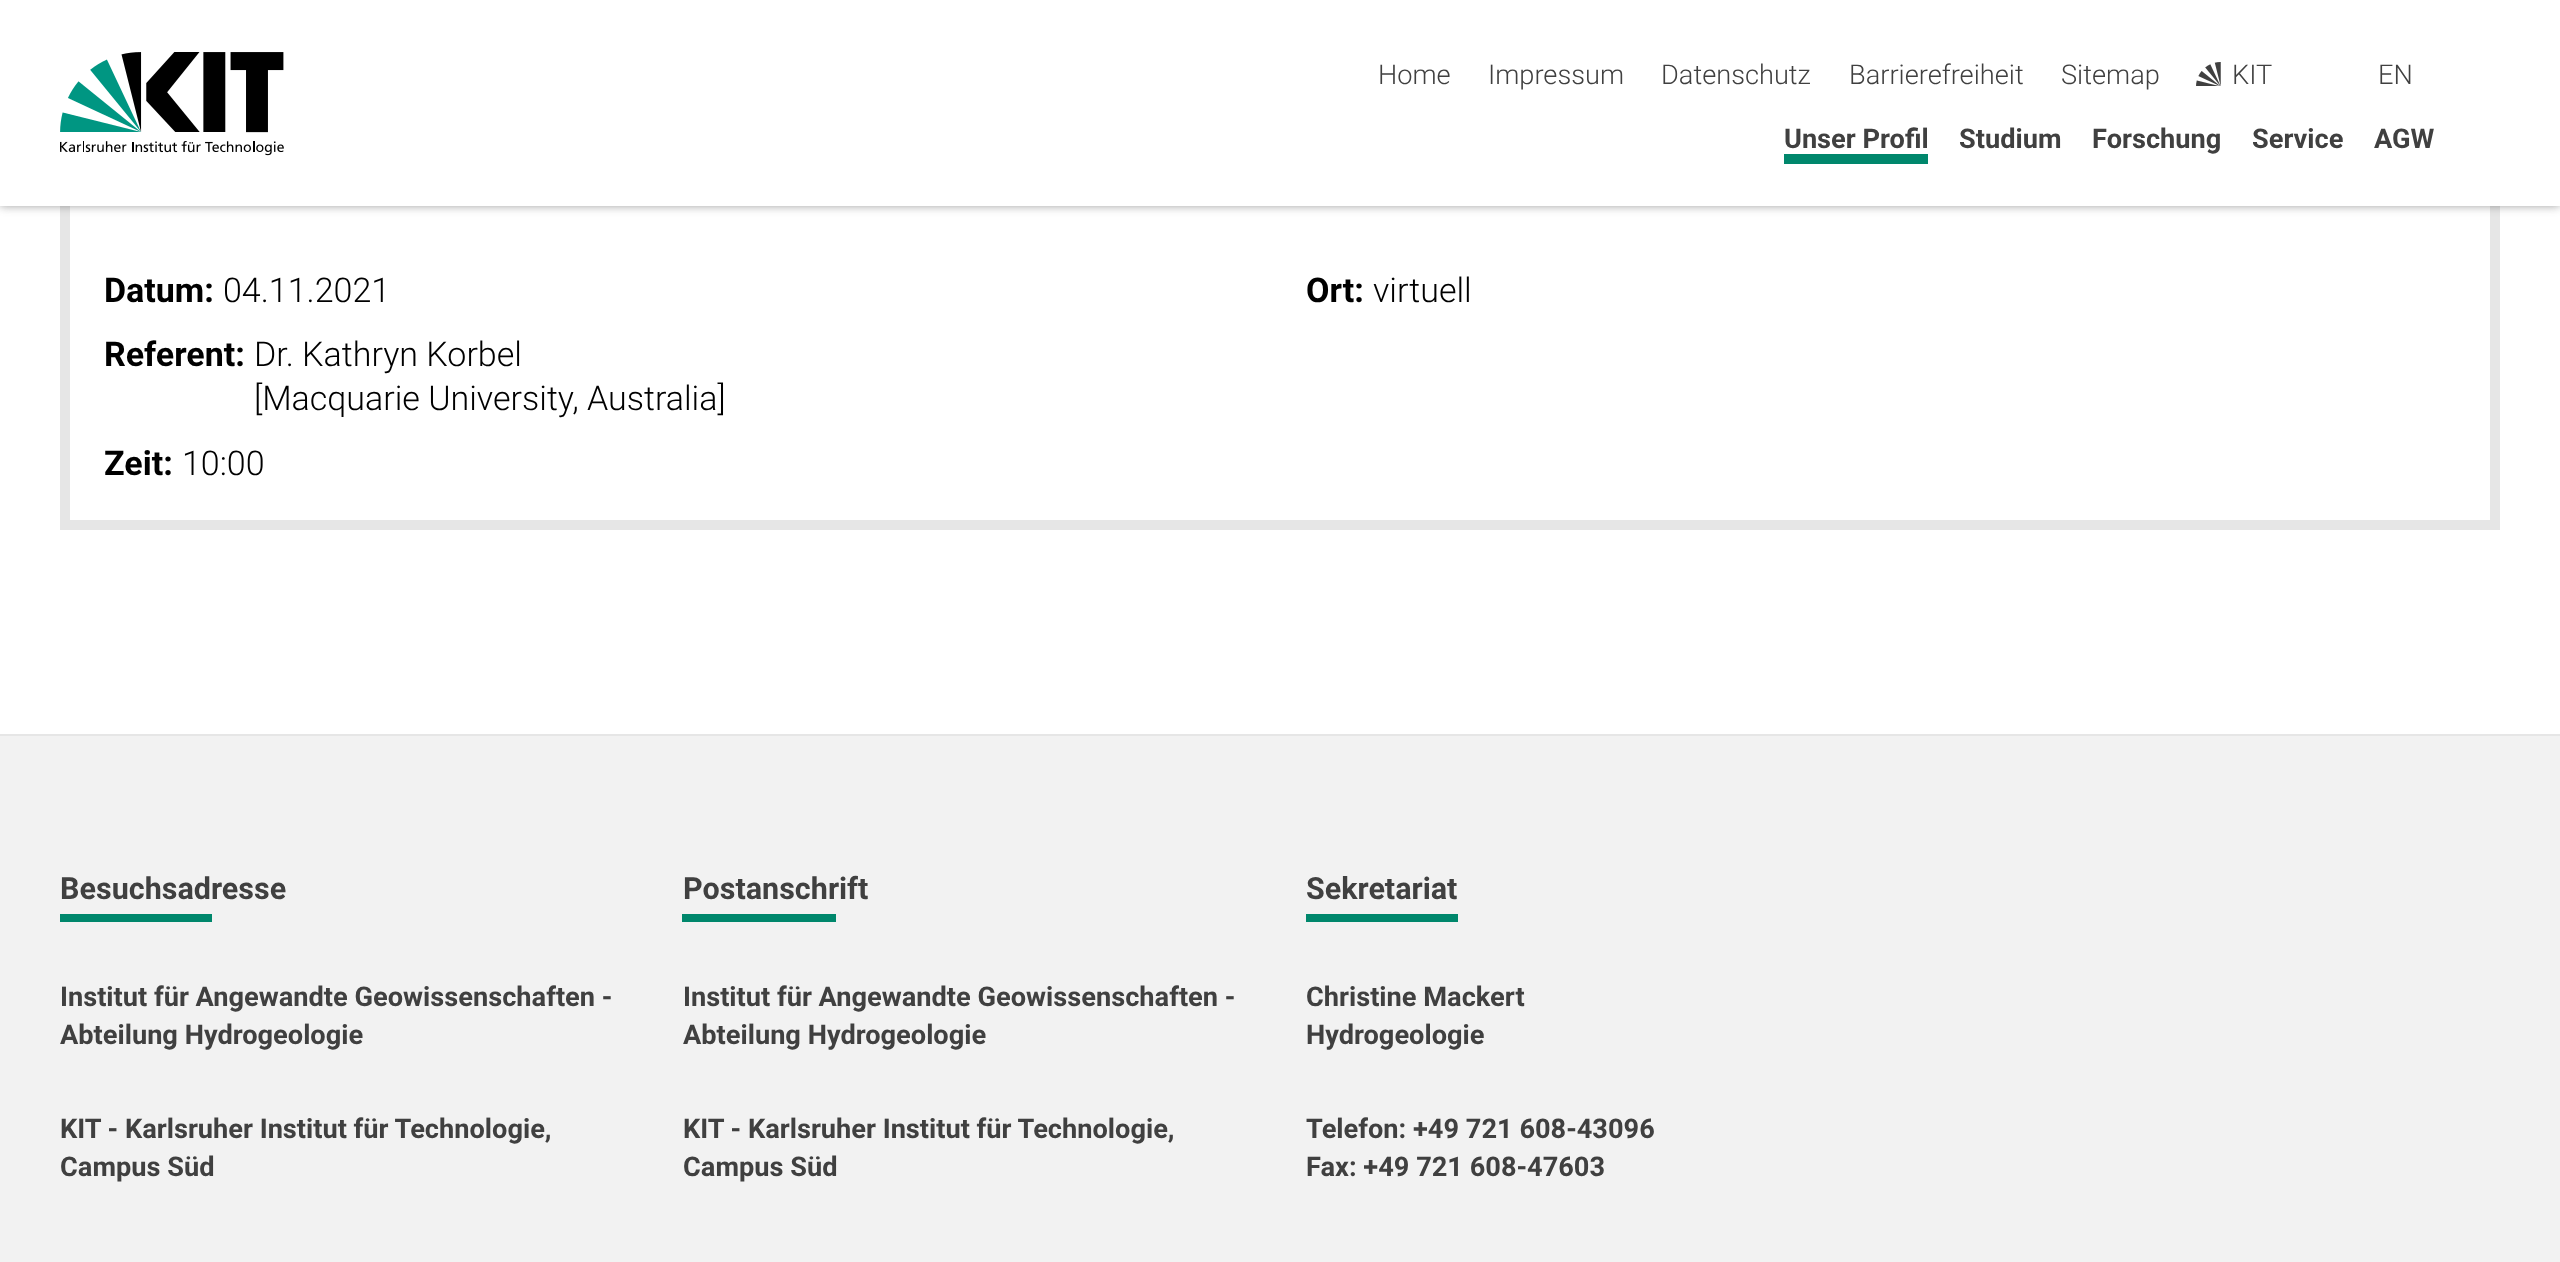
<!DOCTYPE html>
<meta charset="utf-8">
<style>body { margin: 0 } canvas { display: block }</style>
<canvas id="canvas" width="2560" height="1262"></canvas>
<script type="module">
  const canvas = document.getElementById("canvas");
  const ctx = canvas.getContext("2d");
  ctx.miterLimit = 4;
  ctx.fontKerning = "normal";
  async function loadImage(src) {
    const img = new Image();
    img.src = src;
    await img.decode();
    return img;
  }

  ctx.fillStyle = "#ffffff";
  ctx.fillRect(0, 0, 2560, 1262);
  ctx.strokeStyle = "#e6e6e6";
  ctx.lineWidth = 10;
  ctx.strokeRect(65, 35, 2430, 490);
  ctx.fillStyle = "rgba(64, 64, 64, 0.5)";
  ctx.filter = "blur(5px)";
  ctx.beginPath();
  ctx.rect(0, 0, 2560, 206);
  ctx.fill();
  ctx.filter = "none";
  ctx.fillStyle = "#ffffff";
  ctx.fillRect(0, 0, 2560, 206);
  ctx.drawImage(await loadImage("img1.png"), 60, 52, 224, 104);
  ctx.font = "300 27.2px Roboto";
  ctx.fillStyle = "#404040";
  ctx.fillText("Home", 1378, 84);
  ctx.fillText("Impressum", 1488, 84);
  ctx.fillText("Datenschutz", 1661, 84);
  ctx.fillText("Barrierefreiheit", 1849, 84);
  ctx.fillText("Sitemap", 2061, 84);
  ctx.drawImage(await loadImage("img2.png"), 2196, 62, 25, 24);
  ctx.fillText("KIT", 2232, 84);
  ctx.fillText("EN", 2378, 84);
  ctx.font = "bold 27.2px Roboto";
  ctx.fillText("Unser Profil", 1784, 148);
  ctx.fillStyle = "#00876c";
  ctx.fillRect(1784, 154, 144, 10);
  ctx.fillStyle = "#404040";
  ctx.fillText("Studium", 1959, 148);
  ctx.fillText("Forschung", 2092, 148);
  ctx.fillText("Service", 2252, 148);
  ctx.fillText("AGW", 2374, 148);
  ctx.font = "bold 34px Roboto";
  ctx.fillStyle = "#000000";
  ctx.fillText("Datum:", 104, 302);
  ctx.font = "300 34px Roboto";
  ctx.fillText("04.11.2021", 223, 302);
  ctx.font = "bold 34px Roboto";
  ctx.fillText("Referent:", 104, 366);
  ctx.font = "300 34px Roboto";
  ctx.fillText("Dr. Kathryn Korbel", 254, 366);
  ctx.fillText("[Macquarie University, Australia]", 254, 410);
  ctx.font = "bold 34px Roboto";
  ctx.fillText("Zeit:", 104, 475);
  ctx.font = "300 34px Roboto";
  ctx.fillText("10:00", 182, 475);
  ctx.font = "bold 34px Roboto";
  ctx.fillText("Ort:", 1306, 302);
  ctx.font = "300 34px Roboto";
  ctx.fillText("virtuell", 1373, 302);
  ctx.fillStyle = "#f2f2f2";
  ctx.fillRect(0, 736, 2560, 526);
  ctx.fillStyle = "#e6e6e6";
  ctx.fillRect(0, 734, 2560, 2);
  ctx.font = "bold 30.5px Roboto";
  ctx.fillStyle = "#404040";
  ctx.fillText("Besuchsadresse", 60, 899);
  ctx.fillStyle = "#00876c";
  ctx.fillRect(60, 914, 152, 8);
  ctx.font = "bold 27.2px Roboto";
  ctx.fillStyle = "#404040";
  ctx.fillText("Institut für Angewandte Geowissenschaften -", 60, 1006);
  ctx.fillText("Abteilung Hydrogeologie", 60, 1044);
  ctx.fillText("KIT - Karlsruher Institut für Technologie,", 60, 1138);
  ctx.fillText("Campus Süd", 60, 1176);
  ctx.font = "bold 30.5px Roboto";
  ctx.fillText("Postanschrift", 683, 899);
  ctx.fillStyle = "#00876c";
  ctx.fillRect(682, 914, 154, 8);
  ctx.font = "bold 27.2px Roboto";
  ctx.fillStyle = "#404040";
  ctx.fillText("Institut für Angewandte Geowissenschaften -", 683, 1006);
  ctx.fillText("Abteilung Hydrogeologie", 683, 1044);
  ctx.fillText("KIT - Karlsruher Institut für Technologie,", 683, 1138);
  ctx.fillText("Campus Süd", 683, 1176);
  ctx.font = "bold 30.5px Roboto";
  ctx.fillText("Sekretariat", 1306, 899);
  ctx.fillStyle = "#00876c";
  ctx.fillRect(1306, 914, 152, 8);
  ctx.font = "bold 27.2px Roboto";
  ctx.fillStyle = "#404040";
  ctx.fillText("Christine Mackert", 1306, 1006);
  ctx.fillText("Hydrogeologie", 1306, 1044);
  ctx.fillText("Telefon: +49 721 608-43096", 1306, 1138);
  ctx.fillText("Fax: +49 721 608-47603", 1306, 1176);
</script>
